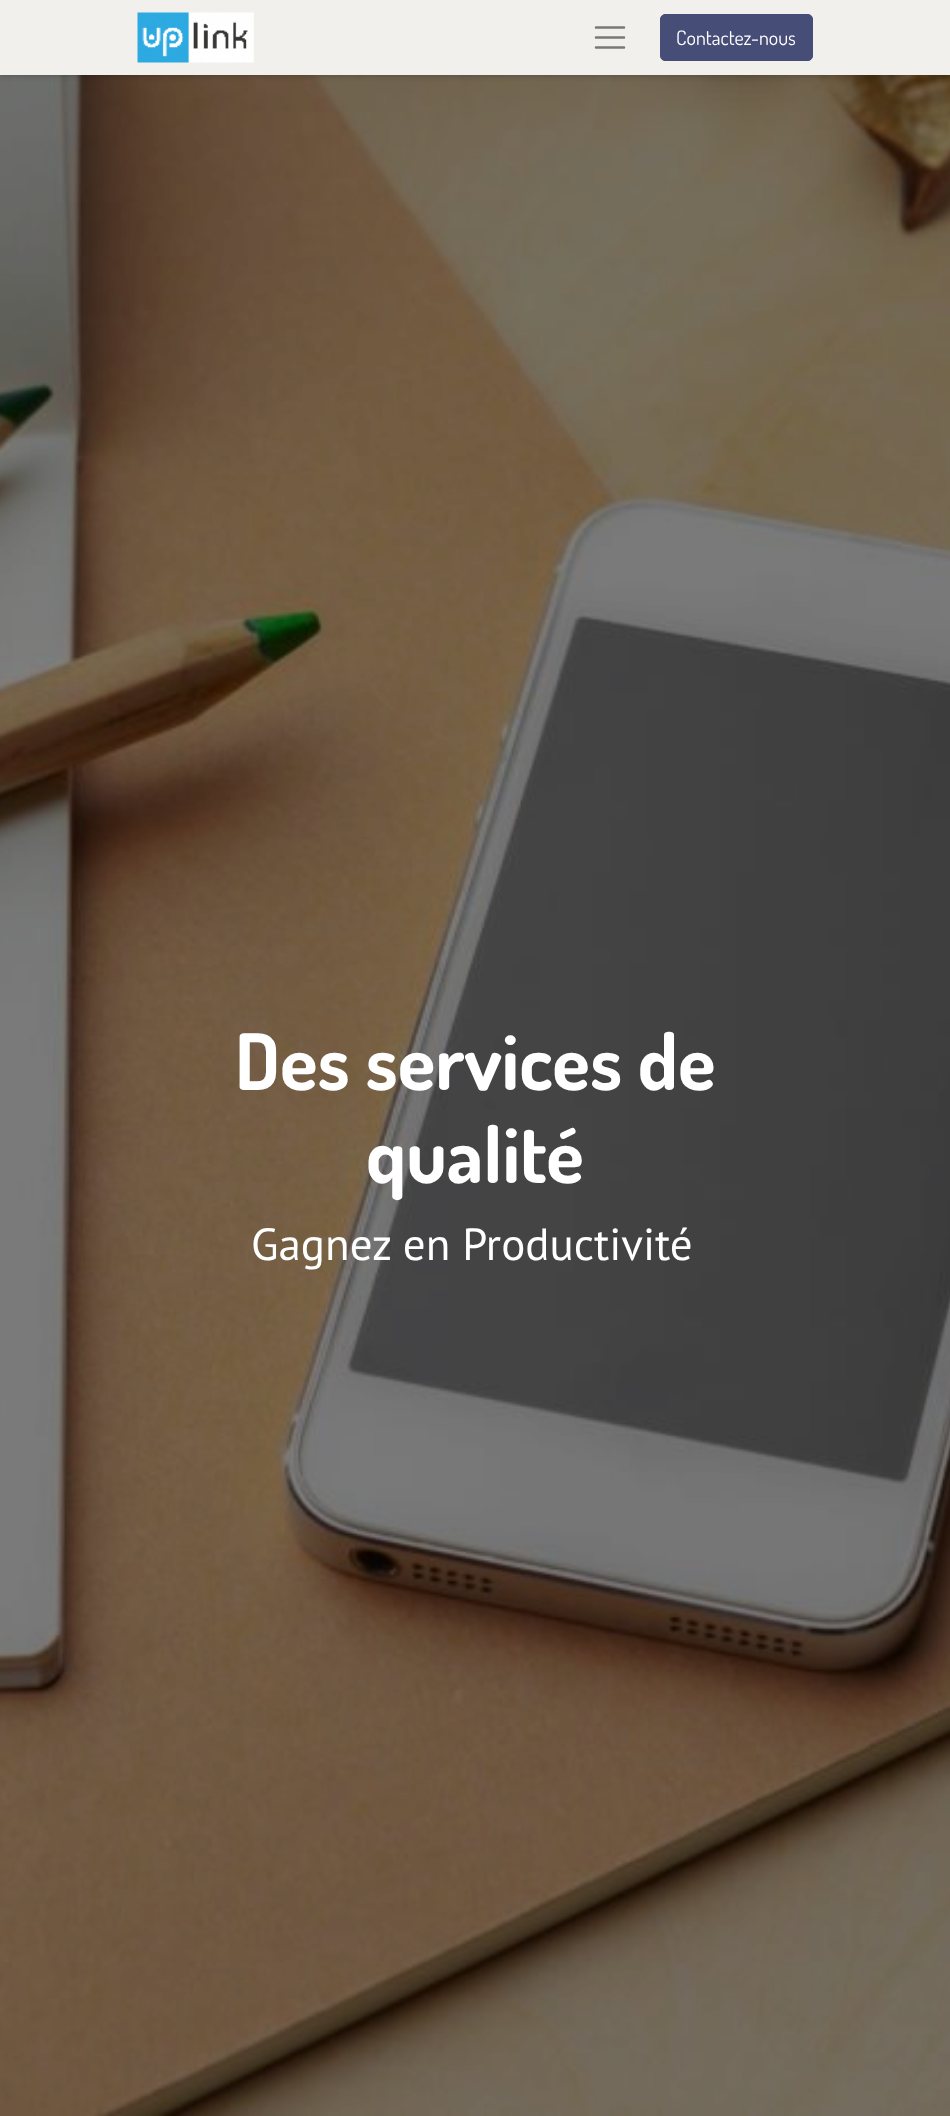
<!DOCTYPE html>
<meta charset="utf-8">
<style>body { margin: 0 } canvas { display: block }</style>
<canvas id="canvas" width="950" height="2116"></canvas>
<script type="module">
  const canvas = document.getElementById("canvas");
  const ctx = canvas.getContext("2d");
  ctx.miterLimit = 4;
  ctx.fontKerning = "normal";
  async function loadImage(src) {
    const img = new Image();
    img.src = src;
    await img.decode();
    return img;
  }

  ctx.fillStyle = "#ffffff";
  ctx.fillRect(0, 0, 950, 2116);
  ctx.drawImage(await loadImage("img2.png"), 0, 75, 950, 2041);
  ctx.fillStyle = "rgba(0, 0, 0, 0.25)";
  ctx.filter = "blur(3px)";
  ctx.beginPath();
  ctx.rect(0, 0, 950, 75);
  ctx.fill();
  ctx.filter = "none";
  ctx.fillStyle = "#f2f0ec";
  ctx.fillRect(0, 0, 950, 75);
  ctx.drawImage(await loadImage("img1.png"), 137, 12, 117, 51);
  ctx.beginPath();
  ctx.moveTo(596, 27.5);
  ctx.lineTo(624, 27.5);
  ctx.moveTo(596, 37.5);
  ctx.lineTo(624, 37.5);
  ctx.moveTo(596, 47.5);
  ctx.lineTo(624, 47.5);
  ctx.strokeStyle = "#797876";
  ctx.lineWidth = 2.5;
  ctx.lineCap = "round";
  ctx.stroke();
  ctx.fillStyle = "#464d77";
  ctx.beginPath();
  ctx.roundRect(660.5, 14.5, 152, 46, 4.5);
  ctx.fill();
  ctx.strokeStyle = "#464d77";
  ctx.lineWidth = 1;
  ctx.stroke();
  ctx.font = "20px Dosis";
  ctx.fillStyle = "#ffffff";
  ctx.fillText("Contactez-nous", 676, 45);
  ctx.font = "bold 77.5px Dosis";
  ctx.fillText("Des services de", 235, 1090);
  ctx.fillText("qualité", 366, 1183);
  ctx.font = "45px PT Sans";
  ctx.fillText("Gagnez en Productivité", 251, 1260);
</script>
